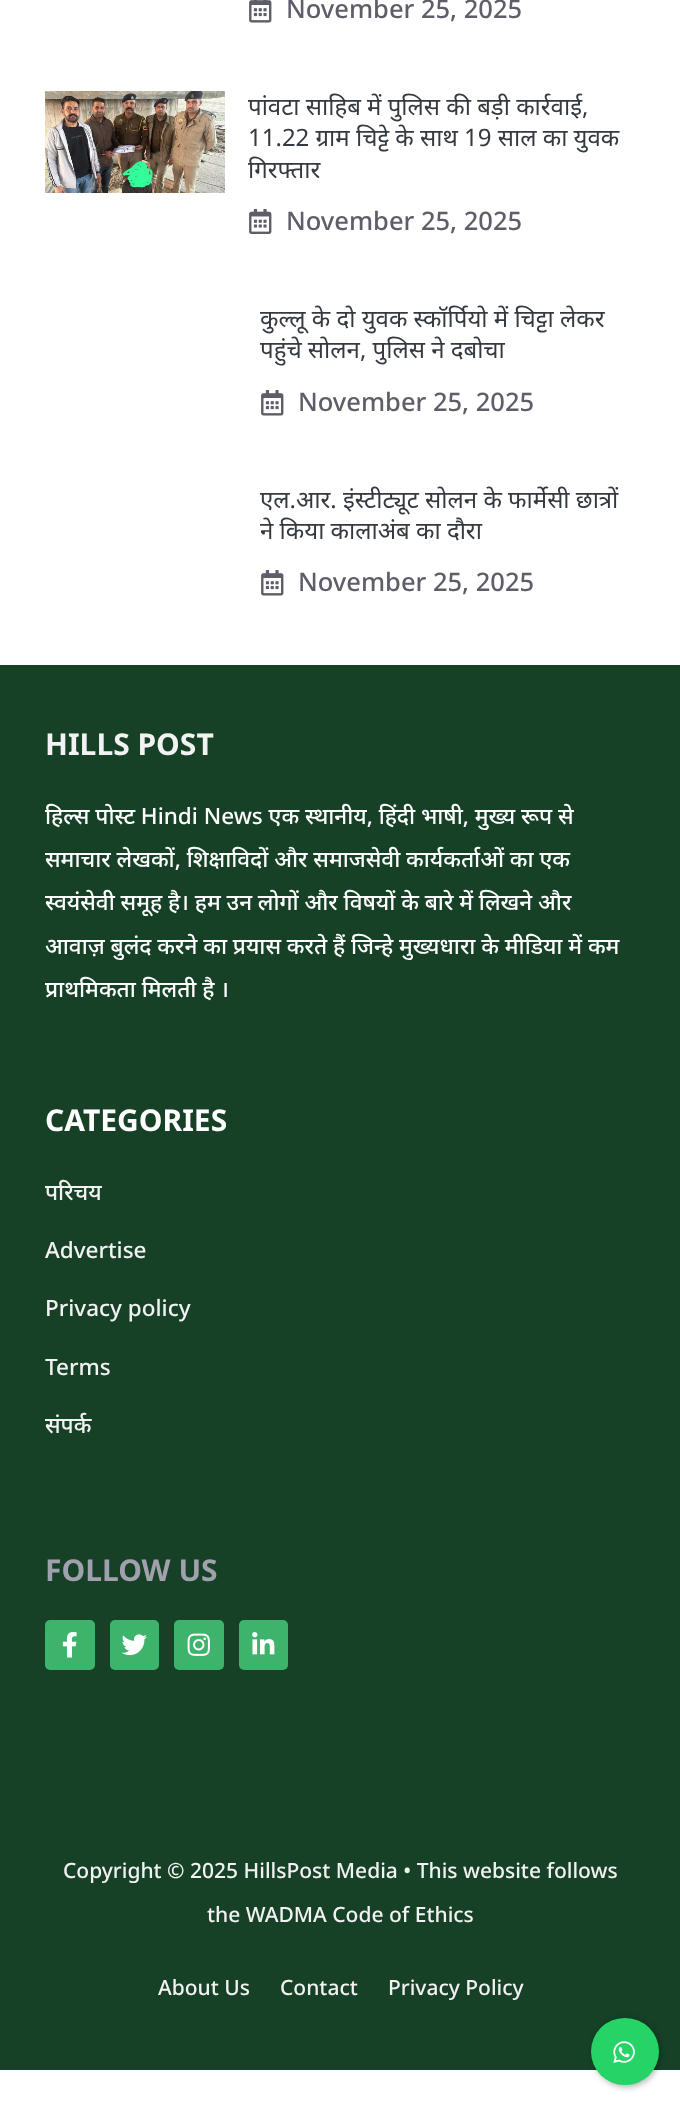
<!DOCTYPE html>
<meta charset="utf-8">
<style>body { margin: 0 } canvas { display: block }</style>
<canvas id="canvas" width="680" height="2107"></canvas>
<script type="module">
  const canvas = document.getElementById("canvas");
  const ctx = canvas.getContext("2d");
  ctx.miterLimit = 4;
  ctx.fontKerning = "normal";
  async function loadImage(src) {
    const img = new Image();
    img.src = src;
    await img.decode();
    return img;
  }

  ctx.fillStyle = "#ffffff";
  ctx.fillRect(0, 0, 680, 2107);
  ctx.drawImage(await loadImage("img1.png"), 249, 0, 23, 23);
  ctx.font = "500 25.5px Noto Sans";
  ctx.fillStyle = "#5e5e69";
  ctx.fillText("November 25, 2025", 286, 18);
  ctx.drawImage(await loadImage("img2.png"), 45, 91, 180, 102);
  ctx.font = "24px Noto Sans";
  ctx.fillStyle = "#343a40";
  ctx.fillText("पांवटा साहिब में पुलिस की बड़ी कार्रवाई,", 248, 115);
  ctx.fillText("11.22 ग्राम चिट्टे के साथ 19 साल का युवक", 248, 146);
  ctx.fillText("गिरफ्तार", 248, 178);
  ctx.drawImage(await loadImage("img3.png"), 249, 209, 23, 25);
  ctx.font = "500 25.5px Noto Sans";
  ctx.fillStyle = "#5e5e69";
  ctx.fillText("November 25, 2025", 286, 230);
  ctx.font = "24px Noto Sans";
  ctx.fillStyle = "#343a40";
  ctx.fillText("कुल्लू के दो युवक स्कॉर्पियो में चिट्टा लेकर", 260, 327);
  ctx.fillText("पहुंचे सोलन, पुलिस ने दबोचा", 260, 358);
  ctx.drawImage(await loadImage("img4.png"), 261, 390, 23, 26);
  ctx.font = "500 25.5px Noto Sans";
  ctx.fillStyle = "#5e5e69";
  ctx.fillText("November 25, 2025", 298, 411);
  ctx.font = "24px Noto Sans";
  ctx.fillStyle = "#343a40";
  ctx.fillText("एल.आर. इंस्टीट्यूट सोलन के फार्मेसी छात्रों", 260, 508);
  ctx.fillText("ने किया कालाअंब का दौरा", 260, 539);
  ctx.drawImage(await loadImage("img4.png"), 261, 570, 23, 26);
  ctx.font = "500 25.5px Noto Sans";
  ctx.fillStyle = "#5e5e69";
  ctx.fillText("November 25, 2025", 298, 591);
  ctx.fillStyle = "#164127";
  ctx.fillRect(0, 665, 680, 1405);
  ctx.font = "bold 30px Noto Sans";
  ctx.fillStyle = "#f2f2f2";
  ctx.fillText("HILLS POST", 45, 755);
  ctx.font = "500 22.5px Noto Sans";
  ctx.fillStyle = "#ffffff";
  ctx.fillText("हिल्स पोस्ट Hindi News एक स्थानीय, हिंदी भाषी, मुख्य रूप से", 45, 824);
  ctx.fillText("समाचार लेखकों, शिक्षाविदों और समाजसेवी कार्यकर्ताओं का एक", 45, 867);
  ctx.fillText("स्वयंसेवी समूह है। हम उन लोगों और विषयों के बारे में लिखने और", 45, 910);
  ctx.fillText("आवाज़ बुलंद करने का प्रयास करते हैं जिन्हे मुख्यधारा के मीडिया में कम", 45, 954);
  ctx.fillText("प्राथमिकता मिलती है ।", 45, 997);
  ctx.font = "bold 30px Noto Sans";
  ctx.fillText("CATEGORIES", 45, 1131);
  ctx.font = "500 22.5px Noto Sans";
  ctx.fillStyle = "#f2f2f2";
  ctx.fillText("परिचय", 45, 1200);
  ctx.fillText("Advertise", 45, 1258);
  ctx.fillText("Privacy policy", 45, 1316);
  ctx.fillText("Terms", 45, 1375);
  ctx.fillText("संपर्क", 45, 1433);
  ctx.font = "bold 30px Noto Sans";
  ctx.fillStyle = "#a0a1ad";
  ctx.fillText("FOLLOW US", 45, 1581);
  ctx.fillStyle = "#3db36c";
  ctx.beginPath();
  ctx.roundRect(45, 1620, 50, 50, 5);
  ctx.fill();
  ctx.drawImage(await loadImage("img5.png"), 62, 1632, 15, 26);
  ctx.beginPath();
  ctx.roundRect(110, 1620, 49, 50, 5);
  ctx.fill();
  ctx.drawImage(await loadImage("img6.png"), 122, 1634, 25, 22);
  ctx.beginPath();
  ctx.roundRect(174, 1620, 50, 50, 5);
  ctx.fill();
  ctx.drawImage(await loadImage("img7.png"), 187, 1633, 23, 23);
  ctx.beginPath();
  ctx.roundRect(239, 1620, 49, 50, 5);
  ctx.fill();
  ctx.drawImage(await loadImage("img8.png"), 252, 1632, 23, 23);
  ctx.font = "500 21px Noto Sans";
  ctx.fillStyle = "#f2f2f2";
  ctx.fillText("Copyright © 2025 HillsPost Media • This website follows", 63, 1878);
  ctx.fillText("the WADMA Code of Ethics", 207, 1922);
  ctx.fillText("About Us", 158, 1995);
  ctx.fillText("Contact", 280, 1995);
  ctx.fillText("Privacy Policy", 388, 1995);
  ctx.fillStyle = "rgba(0, 0, 0, 0.3)";
  ctx.filter = "blur(3px)";
  ctx.beginPath();
  ctx.roundRect(593, 2019, 67, 68, 33.5);
  ctx.fill();
  ctx.filter = "none";
  ctx.fillStyle = "#25d366";
  ctx.beginPath();
  ctx.roundRect(591, 2018, 68, 67, 33.5);
  ctx.fill();
  ctx.drawImage(await loadImage("img9.png"), 613, 2041, 22, 22);
</script>
